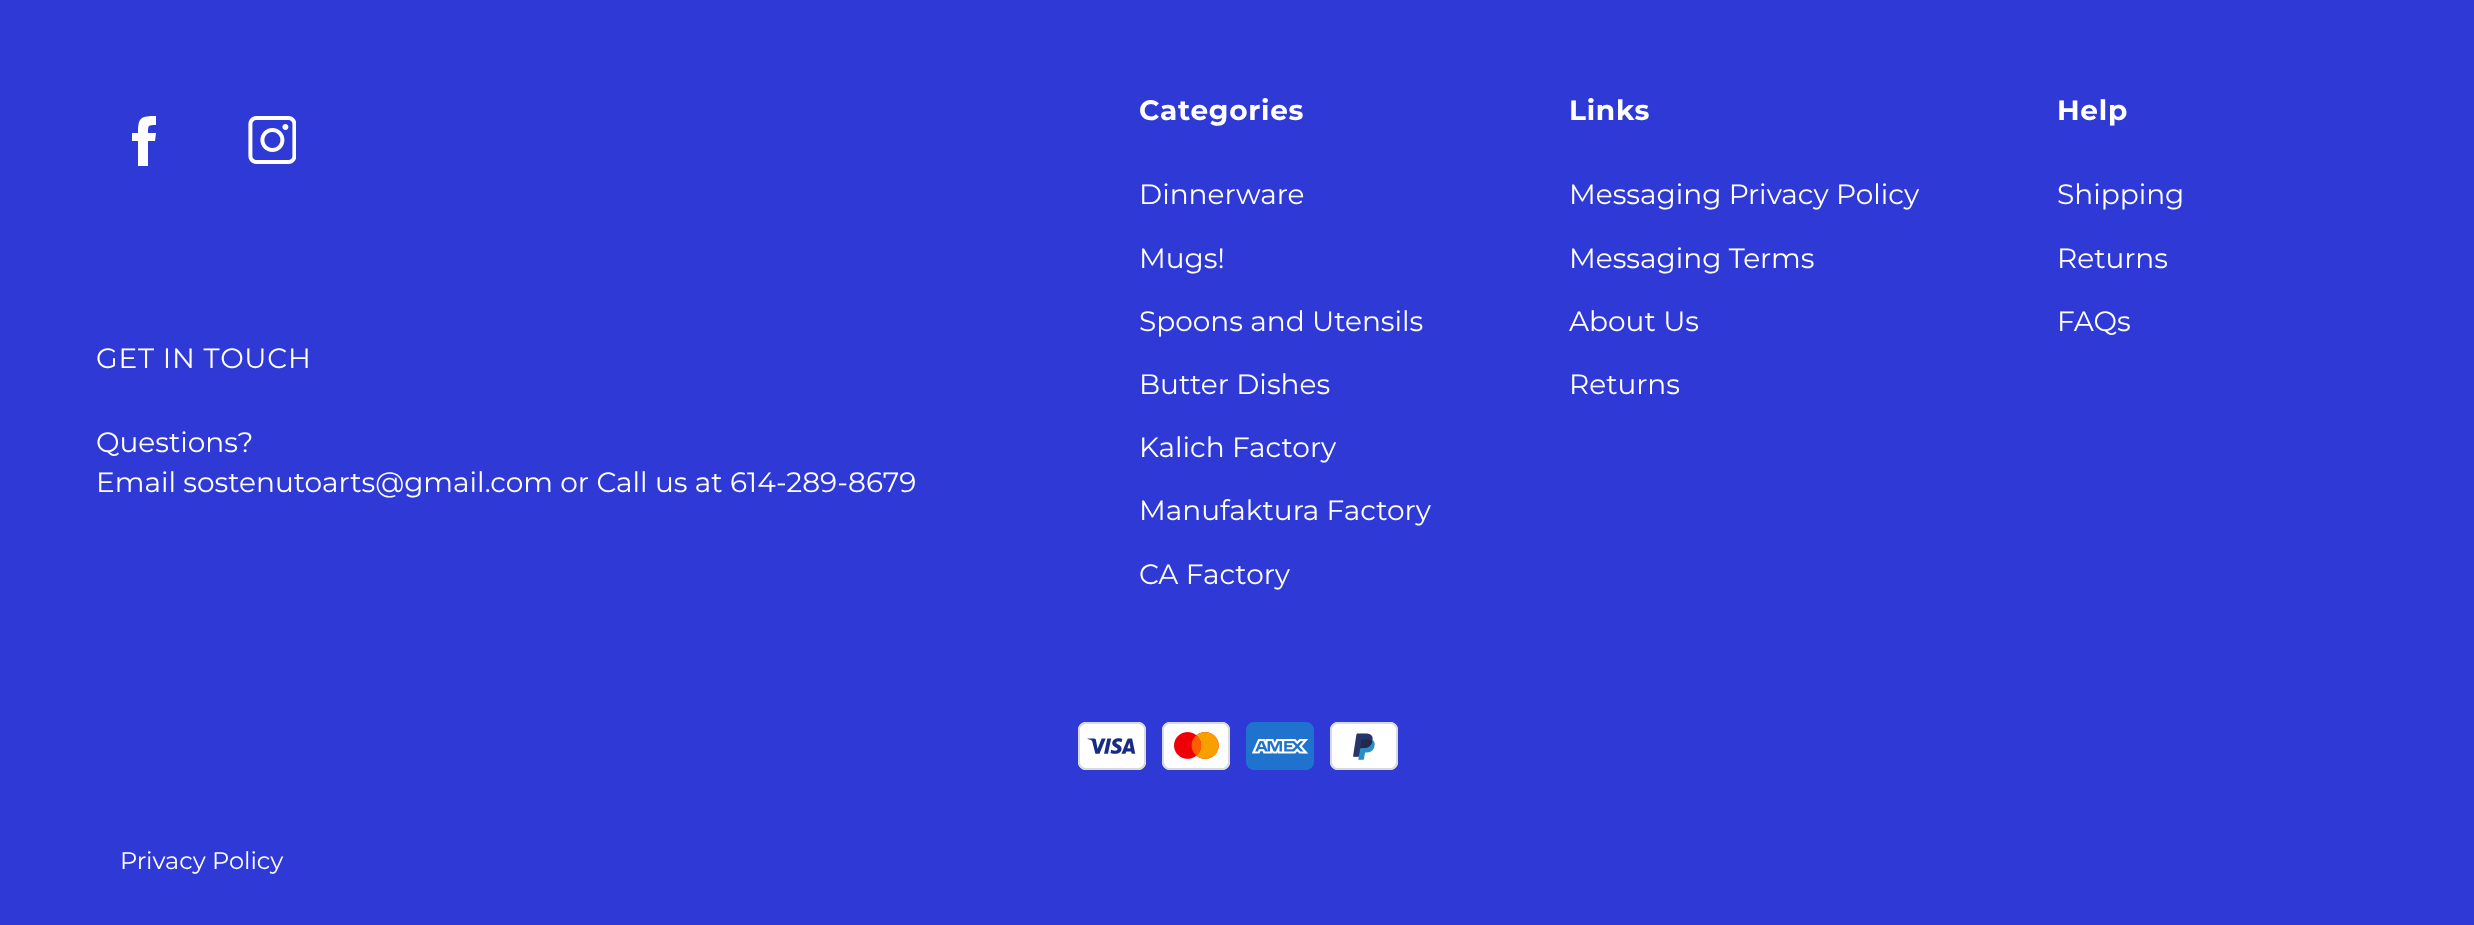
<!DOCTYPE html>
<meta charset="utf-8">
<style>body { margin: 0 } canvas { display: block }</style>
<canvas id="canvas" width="2474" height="925"></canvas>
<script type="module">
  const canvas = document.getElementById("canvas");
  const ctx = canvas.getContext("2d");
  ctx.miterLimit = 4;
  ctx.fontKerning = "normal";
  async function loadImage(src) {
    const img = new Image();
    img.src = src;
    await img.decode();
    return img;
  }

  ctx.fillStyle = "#2e39d6";
  ctx.fillRect(0, 0, 2474, 925);
  ctx.fillStyle = "#ffffff";
  ctx.beginPath();
  ctx.moveTo(148, 166);
  ctx.lineTo(148, 141);
  ctx.lineTo(155, 141);
  ctx.lineTo(156, 133);
  ctx.lineTo(148, 133);
  ctx.bezierCurveTo(148, 125, 148, 125, 156, 125);
  ctx.lineTo(156, 116);
  ctx.bezierCurveTo(141, 116, 138, 117, 138, 133);
  ctx.lineTo(132, 133);
  ctx.lineTo(132, 141);
  ctx.lineTo(138, 141);
  ctx.lineTo(138, 166);
  ctx.closePath();
  ctx.fill("evenodd");
  ctx.drawImage(await loadImage("img1.png"), 248, 116, 48, 48);
  ctx.letterSpacing = "0.75px";
  ctx.font = "28px Montserrat";
  ctx.fillText("GET IN TOUCH", 96, 368);
  ctx.letterSpacing = "0px";
  ctx.fillText("Questions?", 96, 452);
  ctx.fillText("Email sostenutoarts@gmail.com or Call us at 614-289-8679", 96, 492);
  ctx.letterSpacing = "0.75px";
  ctx.font = "bold 28px Montserrat";
  ctx.fillText("Categories", 1139, 120);
  ctx.letterSpacing = "0px";
  ctx.font = "28px Montserrat";
  ctx.fillText("Dinnerware", 1139, 204);
  ctx.fillText("Mugs!", 1139, 268);
  ctx.fillText("Spoons and Utensils", 1139, 331);
  ctx.fillText("Butter Dishes", 1139, 394);
  ctx.fillText("Kalich Factory", 1139, 457);
  ctx.fillText("Manufaktura Factory", 1139, 520);
  ctx.fillText("CA Factory", 1139, 584);
  ctx.letterSpacing = "0.75px";
  ctx.font = "bold 28px Montserrat";
  ctx.fillText("Links", 1569, 120);
  ctx.letterSpacing = "0px";
  ctx.font = "28px Montserrat";
  ctx.fillText("Messaging Privacy Policy", 1569, 204);
  ctx.fillText("Messaging Terms", 1569, 268);
  ctx.fillText("About Us", 1569, 331);
  ctx.fillText("Returns", 1569, 394);
  ctx.letterSpacing = "0.75px";
  ctx.font = "bold 28px Montserrat";
  ctx.fillText("Help", 2057, 120);
  ctx.letterSpacing = "0px";
  ctx.font = "28px Montserrat";
  ctx.fillText("Shipping", 2057, 204);
  ctx.fillText("Returns", 2057, 268);
  ctx.fillText("FAQs", 2057, 331);
  ctx.drawImage(await loadImage("img2.png"), 1078, 722, 68, 48);
  ctx.drawImage(await loadImage("img3.png"), 1162, 722, 68, 48);
  ctx.drawImage(await loadImage("img4.png"), 1246, 722, 68, 48);
  ctx.drawImage(await loadImage("img5.png"), 1330, 722, 68, 48);
  ctx.font = "24px Montserrat";
  ctx.fillText("Privacy Policy", 120, 869);
</script>
